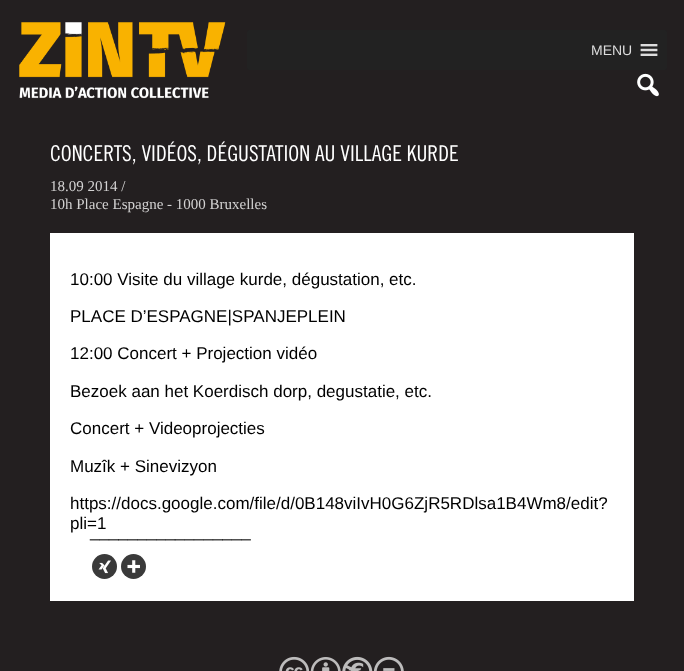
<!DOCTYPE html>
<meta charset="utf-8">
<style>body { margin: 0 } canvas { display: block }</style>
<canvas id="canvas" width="684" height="671"></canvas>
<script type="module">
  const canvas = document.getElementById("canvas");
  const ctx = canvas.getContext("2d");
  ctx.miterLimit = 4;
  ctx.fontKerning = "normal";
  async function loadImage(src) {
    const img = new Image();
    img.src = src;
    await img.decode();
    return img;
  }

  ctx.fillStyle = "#231f20";
  ctx.fillRect(0, 0, 684, 671);
  ctx.drawImage(await loadImage("img1.png"), 19, 22, 207, 77);
  ctx.fillStyle = "#222222";
  ctx.beginPath();
  ctx.roundRect(247, 30, 420, 40, 2);
  ctx.fill();
  ctx.font = "14px Liberation Sans";
  ctx.fillStyle = "#dddddd";
  ctx.fillText("MENU", 591, 55);
  ctx.drawImage(await loadImage("img2.png"), 640, 44, 18, 12);
  ctx.drawImage(await loadImage("img3.png"), 637, 73, 22, 24);
  ctx.font = "500 21.75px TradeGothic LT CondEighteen";
  ctx.fillStyle = "#ffffff";
  ctx.fillText("CONCERTS, VIDÉOS, DÉGUSTATION AU VILLAGE KURDE", 50, 161);
  ctx.font = "15px Liberation Serif";
  ctx.fillStyle = "#d3d2d2";
  ctx.fillText("18.09 2014 /", 50, 191);
  ctx.fillText("10h Place Espagne - 1000 Bruxelles", 50, 209);
  ctx.fillStyle = "#ffffff";
  ctx.fillRect(50, 233, 584, 368);
  ctx.font = "17px Liberation Sans";
  ctx.fillStyle = "#000000";
  ctx.fillText("10:00 Visite du village kurde, dégustation, etc.", 70, 285);
  ctx.fillText("PLACE D’ESPAGNE|SPANJEPLEIN", 70, 322);
  ctx.fillText("12:00 Concert + Projection vidéo", 70, 359);
  ctx.fillText("Bezoek aan het Koerdisch dorp, degustatie, etc.", 70, 397);
  ctx.fillText("Concert + Videoprojecties", 70, 434);
  ctx.fillText("Muzîk + Sinevizyon", 70, 472);
  ctx.fillText("https://docs.google.com/file/d/0B148viIvH0G6ZjR5RDlsa1B4Wm8/edit?", 70, 509);
  ctx.fillText("pli=1", 70, 529);
  ctx.fillText("_________________", 90, 537);
  ctx.fillStyle = "#3a3a3a";
  ctx.beginPath();
  ctx.arc(104.5, 566.5, 12.5, 0, Math.PI * 2);
  ctx.fill();
  ctx.drawImage(await loadImage("img4.png"), 98, 560, 13, 14);
  ctx.beginPath();
  ctx.arc(133.5, 566.5, 12.5, 0, Math.PI * 2);
  ctx.fill();
  ctx.drawImage(await loadImage("img5.png"), 127, 560, 13, 13);
  ctx.drawImage(await loadImage("img6.png"), 279, 656, 125, 15);
</script>
